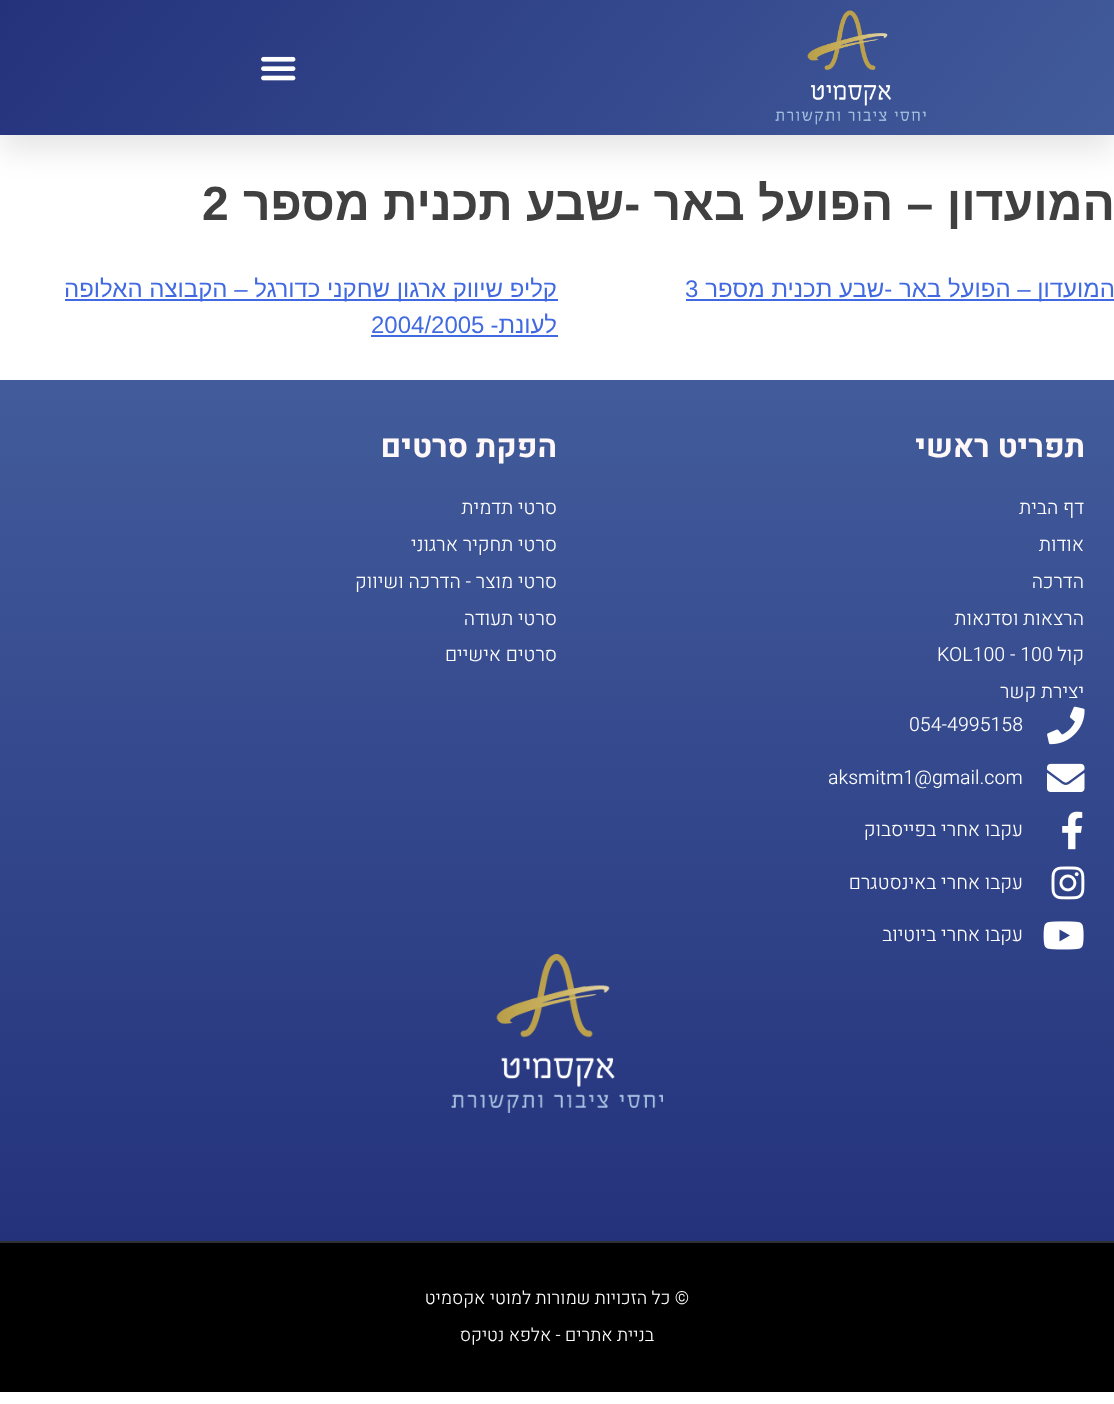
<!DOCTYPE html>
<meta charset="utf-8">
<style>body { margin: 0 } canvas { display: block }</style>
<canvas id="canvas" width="1114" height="1404"></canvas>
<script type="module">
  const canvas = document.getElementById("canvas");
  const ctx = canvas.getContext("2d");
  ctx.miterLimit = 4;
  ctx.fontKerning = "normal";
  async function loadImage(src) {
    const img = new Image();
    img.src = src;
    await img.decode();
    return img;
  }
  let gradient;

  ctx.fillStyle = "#ffffff";
  ctx.fillRect(0, 0, 1114, 1404);
  ctx.fillStyle = "rgba(0, 0, 0, 0.1)";
  ctx.filter = "blur(15px)";
  ctx.beginPath();
  ctx.rect(0, 15, 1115, 135);
  ctx.fill();
  ctx.filter = "none";
  gradient = ctx.createLinearGradient(197, -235, 917, 370);
  gradient.addColorStop(0, "#24327c");
  gradient.addColorStop(1, "#425c9b");
  ctx.fillStyle = gradient;
  ctx.fillRect(0, 0, 1114, 135);
  ctx.drawImage(await loadImage("img1.png"), 775, 10, 151, 115);
  ctx.drawImage(await loadImage("img2.png"), 261, 56, 35, 25);
  ctx.direction = "rtl";
  ctx.font = "bold 48px Liberation Sans";
  ctx.fillStyle = "#404040";
  ctx.fillText("המועדון – הפועל באר -שבע תכנית מספר", 1115, 220);
  ctx.direction = "ltr";
  ctx.fillText("2", 202, 220);
  ctx.fillStyle = "#4169e1";
  ctx.fillRect(686, 299, 428, 2);
  ctx.direction = "rtl";
  ctx.font = "24px Liberation Sans";
  ctx.fillText("המועדון – הפועל באר -שבע תכנית מספר", 1115, 297);
  ctx.direction = "ltr";
  ctx.fillText("3", 685, 297);
  ctx.fillRect(65, 299, 493, 2);
  ctx.direction = "rtl";
  ctx.fillText("קליפ שיווק ארגון שחקני כדורגל – הקבוצה האלופה", 557, 297);
  ctx.fillText("לעונת-", 557, 333);
  ctx.direction = "ltr";
  ctx.fillText("2004/2005", 371, 333);
  ctx.fillRect(371, 335, 187, 2);
  gradient = ctx.createLinearGradient(557, 379, 557, 1241);
  gradient.addColorStop(0, "#425c9b");
  gradient.addColorStop(1, "#24327c");
  ctx.fillStyle = gradient;
  ctx.fillRect(0, 380, 1114, 861);
  ctx.direction = "rtl";
  ctx.font = "bold 31.5px Heebo";
  ctx.fillStyle = "#fff8f8";
  ctx.fillText("תפריט ראשי", 1085, 457);
  ctx.font = "300 19.5px Heebo";
  ctx.fillStyle = "#ffffff";
  ctx.fillText("דף הבית", 1084, 514);
  ctx.fillText("אודות", 1084, 551);
  ctx.fillText("הדרכה", 1084, 588);
  ctx.fillText("הרצאות וסדנאות", 1084, 625);
  ctx.fillText("קול", 1084, 661);
  ctx.direction = "ltr";
  ctx.fillText("KOL100 - 100", 937, 661);
  ctx.direction = "rtl";
  ctx.fillText("יצירת קשר", 1084, 698);
  ctx.font = "bold 31.5px Heebo";
  ctx.fillStyle = "#fff8f8";
  ctx.fillText("הפקת סרטים", 557, 457);
  ctx.font = "300 19.5px Heebo";
  ctx.fillStyle = "#ffffff";
  ctx.fillText("סרטי תדמית", 557, 514);
  ctx.fillText("סרטי תחקיר ארגוני", 557, 551);
  ctx.fillText("סרטי מוצר - הדרכה ושיווק", 557, 588);
  ctx.fillText("סרטי תעודה", 557, 625);
  ctx.fillText("סרטים אישיים", 557, 661);
  ctx.drawImage(await loadImage("img3.png"), 1047, 706, 38, 39);
  ctx.direction = "ltr";
  ctx.fillText("054-4995158", 909, 731);
  ctx.drawImage(await loadImage("img4.png"), 1047, 763, 38, 29);
  ctx.fillText("aksmitm1@gmail.com", 828, 784);
  ctx.drawImage(await loadImage("img5.png"), 1062, 811, 21, 39);
  ctx.direction = "rtl";
  ctx.fillText("עקבו אחרי בפייסבוק", 1023, 836);
  ctx.drawImage(await loadImage("img6.png"), 1051, 866, 34, 34);
  ctx.fillText("עקבו אחרי באינסטגרם", 1023, 889);
  ctx.drawImage(await loadImage("img7.png"), 1043, 921, 41, 29);
  ctx.fillText("עקבו אחרי ביוטיוב", 1023, 941);
  ctx.drawImage(await loadImage("img8.png"), 451, 954, 212, 159);
  ctx.fillStyle = "#000000";
  ctx.fillRect(0, 1243, 1114, 149);
  ctx.fillStyle = "#303030";
  ctx.fillRect(0, 1241, 1114, 2);
  ctx.font = "300 18px Heebo";
  ctx.fillStyle = "#ffffff";
  ctx.fillText("© כל הזכויות שמורות למוטי אקסמיט", 689, 1304);
  ctx.fillText("בניית אתרים - אלפא נטיקס", 654, 1341);
</script>
